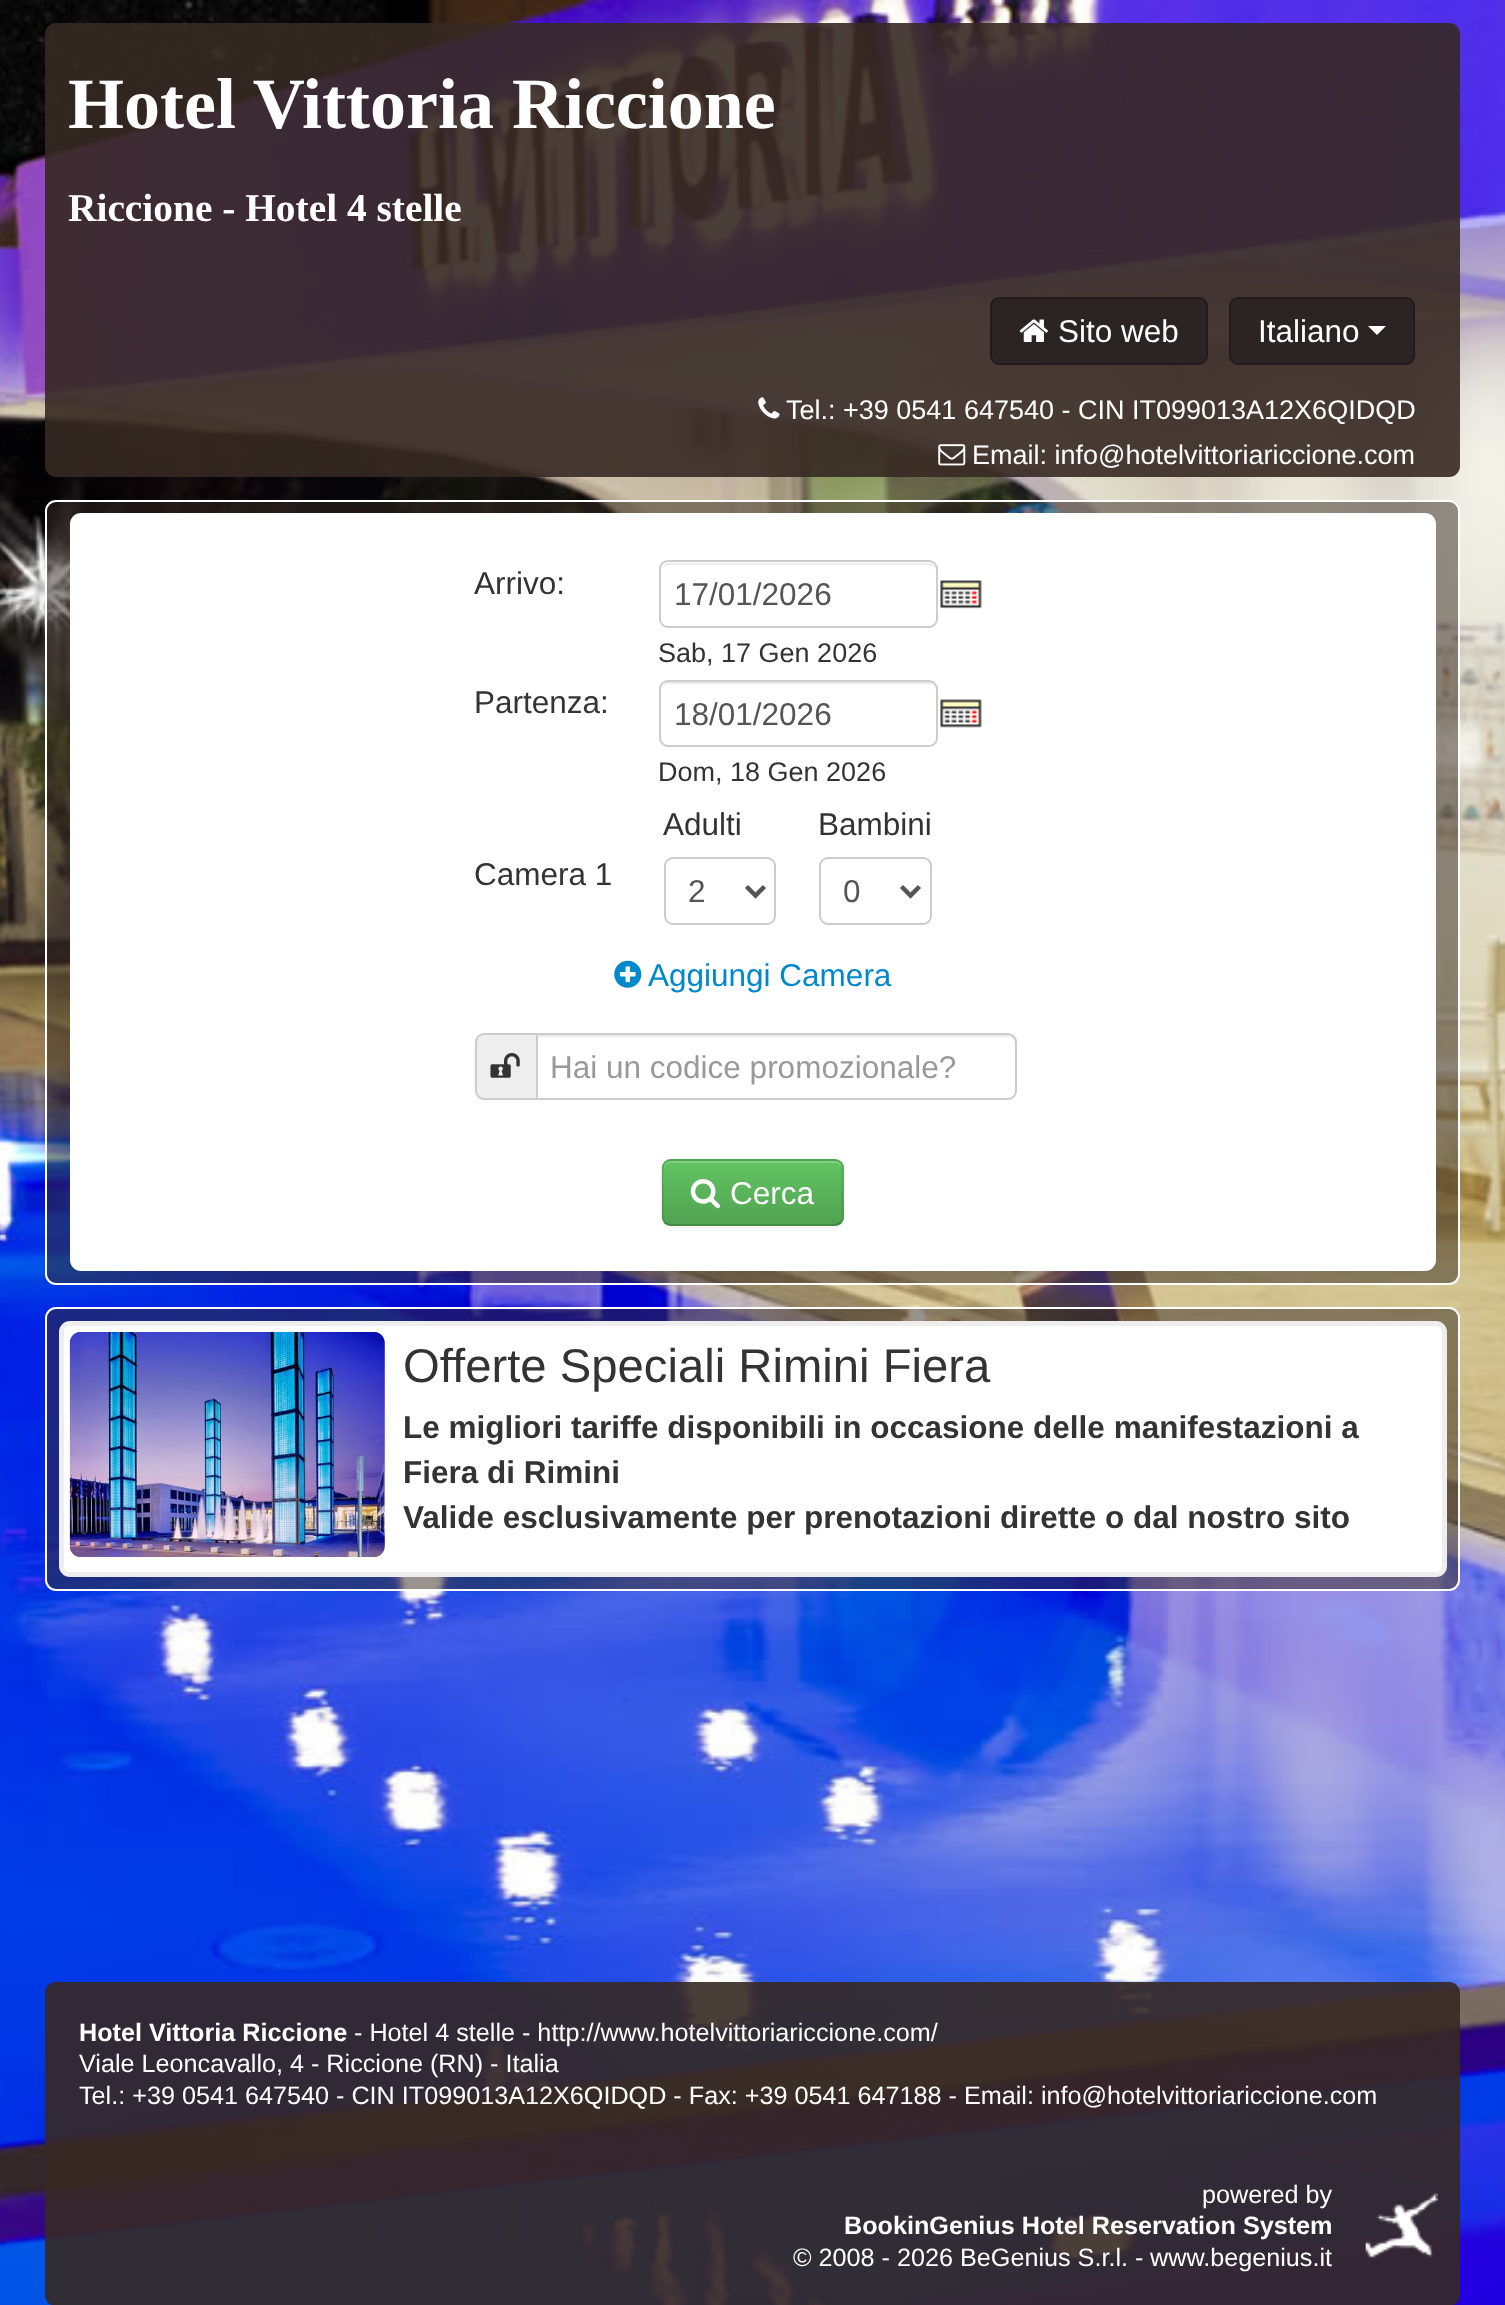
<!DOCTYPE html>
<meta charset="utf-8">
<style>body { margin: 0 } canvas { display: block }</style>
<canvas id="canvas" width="1505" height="2305"></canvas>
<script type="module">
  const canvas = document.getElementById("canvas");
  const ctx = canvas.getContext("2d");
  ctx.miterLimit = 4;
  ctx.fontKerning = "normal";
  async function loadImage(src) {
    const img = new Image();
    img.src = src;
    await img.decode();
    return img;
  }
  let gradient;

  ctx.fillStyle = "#ffffff";
  ctx.fillRect(0, 0, 1505, 2305);
  ctx.drawImage(await loadImage("img1.png"), 0, 0, 1505, 2305);
  ctx.fillStyle = "rgba(54, 41, 34, 0.9)";
  ctx.beginPath();
  ctx.roundRect(45, 23, 1415, 454, 11);
  ctx.fill();
  ctx.font = "bold 72px Liberation Serif";
  ctx.fillStyle = "#ffffff";
  ctx.fillText("Hotel Vittoria Riccione", 68, 128);
  ctx.font = "bold 39.4px Liberation Serif";
  ctx.fillText("Riccione - Hotel 4 stelle", 68, 221);
  ctx.fillStyle = "#2c2424";
  ctx.beginPath();
  ctx.roundRect(991, 298, 216, 66, 8);
  ctx.fill();
  ctx.strokeStyle = "#211b1b";
  ctx.lineWidth = 2;
  ctx.stroke();
  ctx.drawImage(await loadImage("img2.png"), 1019, 319, 29, 23);
  ctx.font = "31.5px Liberation Sans";
  ctx.fillStyle = "#ffffff";
  ctx.fillText("Sito web", 1058, 342);
  ctx.fillStyle = "#2c2424";
  ctx.beginPath();
  ctx.roundRect(1230, 298, 184, 66, 8);
  ctx.fill();
  ctx.stroke();
  ctx.fillStyle = "#ffffff";
  ctx.fillText("Italiano", 1258, 342);
  ctx.beginPath();
  ctx.moveTo(1368, 326);
  ctx.lineTo(1386, 326);
  ctx.lineTo(1377, 335);
  ctx.closePath();
  ctx.fill();
  ctx.drawImage(await loadImage("img3.png"), 758, 397, 22, 22);
  ctx.font = "27px Liberation Sans";
  ctx.fillText("Tel.: +39 0541 647540 - CIN IT099013A12X6QIDQD", 786, 419);
  ctx.drawImage(await loadImage("img4.png"), 938, 444, 28, 22);
  ctx.fillText("Email: info@hotelvittoriariccione.com", 972, 464);
  ctx.fillStyle = "rgba(54, 41, 34, 0.5)";
  ctx.beginPath();
  ctx.roundRect(46, 501, 1413, 783, 10);
  ctx.fill();
  ctx.strokeStyle = "#ffffff";
  ctx.stroke();
  ctx.fillStyle = "#ffffff";
  ctx.beginPath();
  ctx.roundRect(70, 513, 1366, 758, 11);
  ctx.fill();
  ctx.font = "31.5px Liberation Sans";
  ctx.fillStyle = "#333333";
  ctx.fillText("Arrivo:", 474, 594);
  ctx.fillStyle = "#ececec";
  ctx.beginPath();
  ctx.moveTo(668, 565);
  ctx.lineTo(929, 565);
  ctx.bezierCurveTo(933, 565, 936, 568, 936, 572);
  ctx.bezierCurveTo(936, 568, 935, 564, 930, 563);
  ctx.lineTo(669, 563);
  ctx.bezierCurveTo(664, 563, 662, 568, 662, 572);
  ctx.bezierCurveTo(662, 568, 665, 565, 668, 565);
  ctx.closePath();
  ctx.fill();
  ctx.beginPath();
  ctx.roundRect(660, 561, 277, 66, 8);
  ctx.strokeStyle = "#cccccc";
  ctx.stroke();
  ctx.fillStyle = "#555555";
  ctx.fillText("17/01/2026", 674, 605);
  ctx.drawImage(await loadImage("img5.png"), 940, 580, 42, 29);
  ctx.font = "27px Liberation Sans";
  ctx.fillStyle = "#333333";
  ctx.fillText("Sab, 17 Gen 2026", 658, 662);
  ctx.font = "31.5px Liberation Sans";
  ctx.fillText("Partenza:", 474, 713);
  ctx.fillStyle = "#ececec";
  ctx.beginPath();
  ctx.moveTo(668, 684);
  ctx.lineTo(929, 684);
  ctx.bezierCurveTo(933, 684, 936, 687, 936, 691);
  ctx.bezierCurveTo(936, 687, 935, 683, 930, 682);
  ctx.lineTo(669, 682);
  ctx.bezierCurveTo(664, 682, 662, 687, 662, 691);
  ctx.bezierCurveTo(662, 687, 665, 684, 668, 684);
  ctx.closePath();
  ctx.fill();
  ctx.beginPath();
  ctx.roundRect(660, 681, 277, 65, 8);
  ctx.stroke();
  ctx.fillStyle = "#555555";
  ctx.fillText("18/01/2026", 674, 725);
  ctx.drawImage(await loadImage("img6.png"), 940, 699, 42, 29);
  ctx.font = "27px Liberation Sans";
  ctx.fillStyle = "#333333";
  ctx.fillText("Dom, 18 Gen 2026", 658, 781);
  ctx.font = "31.5px Liberation Sans";
  ctx.fillText("Camera 1", 474, 885);
  ctx.fillText("Adulti", 663, 835);
  ctx.beginPath();
  ctx.roundRect(665, 858, 110, 66, 8);
  ctx.stroke();
  ctx.beginPath();
  ctx.moveTo(746.5, 886.5);
  ctx.lineTo(755.5, 895.5);
  ctx.lineTo(764.5, 886.5);
  ctx.strokeStyle = "#555555";
  ctx.lineWidth = 4.5;
  ctx.stroke();
  ctx.fillStyle = "#555555";
  ctx.fillText("2", 688, 902);
  ctx.fillStyle = "#333333";
  ctx.fillText("Bambini", 818, 835);
  ctx.beginPath();
  ctx.roundRect(820, 858, 111, 66, 8);
  ctx.strokeStyle = "#cccccc";
  ctx.lineWidth = 2;
  ctx.stroke();
  ctx.beginPath();
  ctx.moveTo(901.5, 886.5);
  ctx.lineTo(910.5, 895.5);
  ctx.lineTo(919.5, 886.5);
  ctx.strokeStyle = "#555555";
  ctx.lineWidth = 4.5;
  ctx.stroke();
  ctx.fillStyle = "#555555";
  ctx.fillText("0", 843, 902);
  ctx.drawImage(await loadImage("img7.png"), 614, 960, 28, 28);
  ctx.fillStyle = "#0088cc";
  ctx.fillText("Aggiungi Camera", 648, 986);
  ctx.fillStyle = "#eeeeee";
  ctx.beginPath();
  ctx.roundRect(476, 1034, 61, 65, [8, 0, 0, 8]);
  ctx.fill();
  ctx.strokeStyle = "#cccccc";
  ctx.lineWidth = 2;
  ctx.stroke();
  ctx.drawImage(await loadImage("img8.png"), 490, 1053, 30, 25);
  ctx.fillStyle = "#ffffff";
  ctx.beginPath();
  ctx.roundRect(536, 1033, 481, 67, [0, 9, 9, 0]);
  ctx.fill();
  ctx.fillStyle = "#ececec";
  ctx.beginPath();
  ctx.moveTo(538, 1037);
  ctx.lineTo(1008, 1037);
  ctx.bezierCurveTo(1012, 1037, 1015, 1040, 1015, 1044);
  ctx.lineTo(1015, 1042);
  ctx.bezierCurveTo(1015, 1038, 1012, 1035, 1008, 1035);
  ctx.lineTo(538, 1035);
  ctx.closePath();
  ctx.fill();
  ctx.beginPath();
  ctx.roundRect(537, 1034, 479, 65, [0, 8, 8, 0]);
  ctx.stroke();
  ctx.fillStyle = "#999999";
  ctx.fillText("Hai un codice promozionale?", 550, 1078);
  ctx.fillStyle = "rgba(0, 0, 0, 0.05)";
  ctx.filter = "blur(2px)";
  ctx.beginPath();
  ctx.roundRect(662, 1161, 182, 68, 9);
  ctx.fill();
  ctx.filter = "none";
  ctx.fillStyle = "#5bb75b";
  ctx.beginPath();
  ctx.roundRect(662, 1159, 182, 67, 9);
  ctx.fill();
  ctx.save();
  ctx.beginPath();
  ctx.roundRect(662, 1159, 182, 67, 9);
  ctx.clip();
  gradient = ctx.createLinearGradient(753, 1161, 753, 1224);
  gradient.addColorStop(0, "#62c462");
  gradient.addColorStop(1, "#51a351");
  ctx.fillStyle = gradient;
  ctx.fillRect(662, 1161, 182, 63);
  ctx.restore();
  ctx.fillStyle = "rgba(255, 255, 255, 0.2)";
  ctx.beginPath();
  ctx.moveTo(670, 1163);
  ctx.lineTo(835, 1163);
  ctx.bezierCurveTo(838, 1163, 842, 1166, 842, 1170);
  ctx.lineTo(842, 1168);
  ctx.bezierCurveTo(842, 1164, 839, 1161, 835, 1161);
  ctx.lineTo(671, 1161);
  ctx.bezierCurveTo(667, 1161, 664, 1164, 664, 1168);
  ctx.lineTo(664, 1170);
  ctx.bezierCurveTo(664, 1166, 667, 1163, 670, 1163);
  ctx.closePath();
  ctx.fill();
  ctx.beginPath();
  ctx.moveTo(840.5, 1223);
  ctx.bezierCurveTo(839, 1224.5, 837, 1225, 835, 1225);
  ctx.lineTo(670.5, 1225);
  ctx.bezierCurveTo(668.5, 1225, 666.5, 1224.5, 665, 1223);
  ctx.strokeStyle = "rgba(0, 0, 0, 0.25)";
  ctx.lineWidth = 2.2;
  ctx.stroke();
  ctx.beginPath();
  ctx.moveTo(665, 1223);
  ctx.bezierCurveTo(661.5, 1219.5, 662.5, 1213.5, 662.5, 1209);
  ctx.lineTo(662.5, 1192.5);
  ctx.bezierCurveTo(662.5, 1154.5, 657.5, 1160, 698, 1160);
  ctx.lineTo(807.5, 1160);
  ctx.bezierCurveTo(847.5, 1160, 842.5, 1154.5, 842.5, 1192.5);
  ctx.lineTo(842.5, 1209);
  ctx.bezierCurveTo(842.5, 1213.5, 844, 1219.5, 840.5, 1223);
  ctx.strokeStyle = "rgba(0, 0, 0, 0.1)";
  ctx.stroke();
  ctx.drawImage(await loadImage("img9.png"), 690, 1179, 30, 30);
  ctx.fillStyle = "#ffffff";
  ctx.fillText("Cerca", 730, 1204);
  ctx.fillStyle = "rgba(54, 41, 34, 0.5)";
  ctx.beginPath();
  ctx.roundRect(46, 1308, 1413, 282, 10);
  ctx.fill();
  ctx.strokeStyle = "#ffffff";
  ctx.lineWidth = 2;
  ctx.stroke();
  ctx.fillStyle = "#ffffff";
  ctx.beginPath();
  ctx.roundRect(61.5, 1323.5, 1383, 251, 8.5);
  ctx.fill();
  ctx.strokeStyle = "#eeeeee";
  ctx.lineWidth = 5;
  ctx.stroke();
  ctx.drawImage(await loadImage("img10.png"), 69, 1332, 316, 225);
  ctx.drawImage(await loadImage("img11.png"), 69, 1332, 316, 225);
  ctx.font = "47.25px Liberation Sans";
  ctx.fillStyle = "#333333";
  ctx.fillText("Offerte Speciali Rimini Fiera", 403, 1382);
  ctx.font = "bold 31.5px Liberation Sans";
  ctx.fillText("Le migliori tariffe disponibili in occasione delle manifestazioni a", 403, 1438);
  ctx.fillText("Fiera di Rimini", 403, 1483);
  ctx.fillText("Valide esclusivamente per prenotazioni dirette o dal nostro sito", 403, 1528);
  ctx.fillStyle = "rgba(54, 41, 34, 0.9)";
  ctx.beginPath();
  ctx.roundRect(45, 1982, 1415, 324, 11);
  ctx.fill();
  ctx.font = "bold 25.2px Liberation Sans";
  ctx.fillStyle = "#ffffff";
  ctx.fillText("Hotel Vittoria Riccione", 79, 2041);
  ctx.font = "25.2px Liberation Sans";
  ctx.fillText("- Hotel 4 stelle - http://www.hotelvittoriariccione.com/", 354, 2041);
  ctx.fillText("Viale Leoncavallo, 4 - Riccione (RN) - Italia", 79, 2072);
  ctx.fillText("Tel.: +39 0541 647540 - CIN IT099013A12X6QIDQD - Fax: +39 0541 647188 - Email: info@hotelvittoriariccione.com", 79, 2104);
  ctx.fillText("powered by", 1202, 2203);
  ctx.font = "bold 25.2px Liberation Sans";
  ctx.fillText("BookinGenius Hotel Reservation System", 844, 2234);
  ctx.font = "25.2px Liberation Sans";
  ctx.fillText("© 2008 - 2026 BeGenius S.r.l. -", 793, 2266);
  ctx.fillText("www.begenius.it", 1150, 2266);
  ctx.drawImage(await loadImage("img12.png"), 1365, 2193, 73, 65);
</script>
